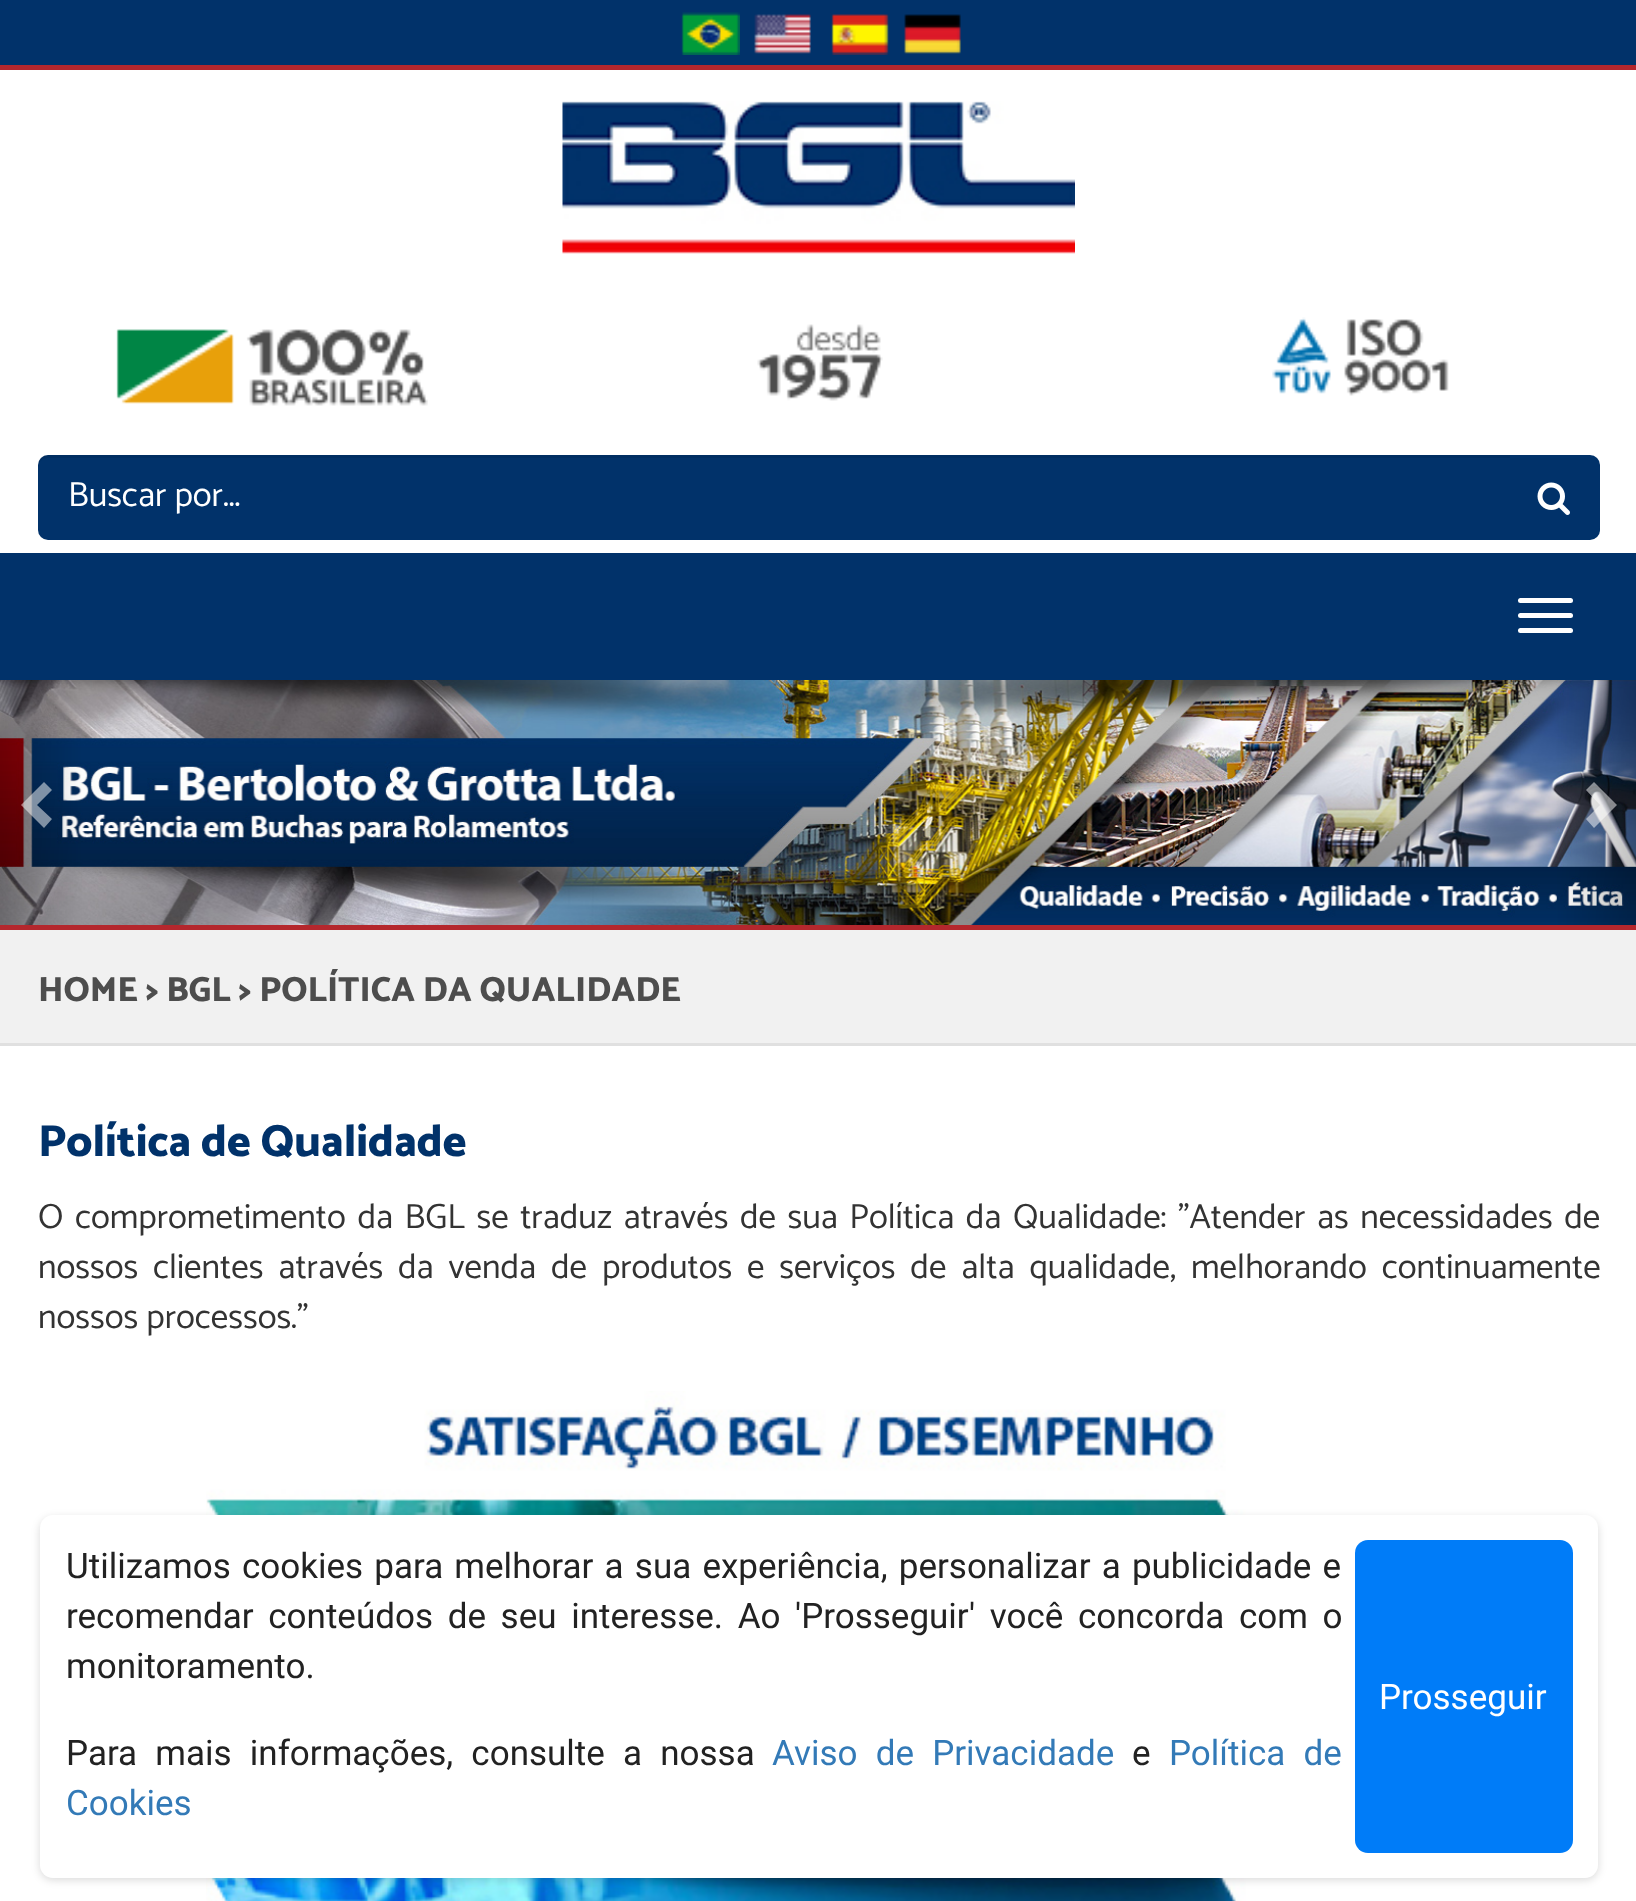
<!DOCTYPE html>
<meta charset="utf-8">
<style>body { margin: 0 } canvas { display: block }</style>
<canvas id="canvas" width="1636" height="1901"></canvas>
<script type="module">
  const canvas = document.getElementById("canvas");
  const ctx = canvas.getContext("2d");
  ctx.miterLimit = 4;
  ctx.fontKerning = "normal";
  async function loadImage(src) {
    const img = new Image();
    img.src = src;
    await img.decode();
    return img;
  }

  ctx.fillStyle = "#ffffff";
  ctx.fillRect(0, 0, 1636, 1901);
  ctx.fillStyle = "#01326a";
  ctx.fillRect(0, 0, 1636, 65);
  ctx.fillStyle = "#b4272d";
  ctx.fillRect(0, 65, 1636, 5);
  ctx.drawImage(await loadImage("img1.png"), 681, 12, 59, 43);
  ctx.drawImage(await loadImage("img2.png"), 754, 14, 57, 40);
  ctx.drawImage(await loadImage("img3.png"), 831, 14, 58, 41);
  ctx.drawImage(await loadImage("img4.png"), 904, 14, 57, 40);
  ctx.drawImage(await loadImage("img5.png"), 562, 101, 513, 153);
  ctx.drawImage(await loadImage("img6.png"), 116, 329, 312, 77);
  ctx.drawImage(await loadImage("img7.png"), 757, 324, 126, 77);
  ctx.drawImage(await loadImage("img8.png"), 1272, 317, 177, 79);
  ctx.fillStyle = "#01326a";
  ctx.beginPath();
  ctx.roundRect(38, 455, 1472, 85, [10, 0, 0, 10]);
  ctx.fill();
  ctx.fillStyle = "rgba(0, 0, 0, 0.07)";
  ctx.beginPath();
  ctx.moveTo(48, 458);
  ctx.lineTo(1510, 458);
  ctx.lineTo(1510, 455);
  ctx.lineTo(48, 455);
  ctx.bezierCurveTo(40, 455, 38, 461, 38, 468);
  ctx.bezierCurveTo(38, 462, 42, 458, 48, 458);
  ctx.closePath();
  ctx.fill();
  ctx.font = "35px Catamaran";
  ctx.fillStyle = "#ffffff";
  ctx.fillText("Buscar por...", 68, 506);
  ctx.fillStyle = "#01326a";
  ctx.beginPath();
  ctx.roundRect(1510, 455, 90, 85, [0, 10, 10, 0]);
  ctx.fill();
  ctx.beginPath();
  ctx.roundRect(1508, 458, 92, 80, [0, 10, 10, 0]);
  ctx.fill();
  ctx.drawImage(await loadImage("img9.png"), 1537, 482, 33, 33);
  ctx.fillRect(0, 553, 1636, 127);
  ctx.fillStyle = "#ffffff";
  ctx.beginPath();
  ctx.roundRect(1518, 598, 55, 5, 2.5);
  ctx.fill();
  ctx.beginPath();
  ctx.roundRect(1518, 613, 55, 5, 2.5);
  ctx.fill();
  ctx.beginPath();
  ctx.roundRect(1518, 628, 55, 5, 2.5);
  ctx.fill();
  ctx.fillStyle = "#b4272d";
  ctx.fillRect(0, 925, 1636, 5);
  ctx.drawImage(await loadImage("img10.png"), 0, 680, 1636, 245);
  ctx.fillStyle = "rgba(255, 255, 255, 0.5)";
  ctx.beginPath();
  ctx.moveTo(52, 790);
  ctx.lineTo(37, 805);
  ctx.lineTo(52, 819);
  ctx.lineTo(44, 828);
  ctx.lineTo(21, 805);
  ctx.lineTo(44, 782);
  ctx.closePath();
  ctx.fill();
  ctx.beginPath();
  ctx.moveTo(1617, 805);
  ctx.lineTo(1594, 828);
  ctx.lineTo(1586, 819);
  ctx.lineTo(1600, 805);
  ctx.lineTo(1586, 790);
  ctx.lineTo(1594, 782);
  ctx.closePath();
  ctx.fill();
  ctx.fillStyle = "#f1f1f1";
  ctx.fillRect(0, 930, 1636, 113);
  ctx.fillStyle = "#e0e0e0";
  ctx.fillRect(0, 1043, 1636, 3);
  ctx.font = "800 35px Catamaran";
  ctx.fillStyle = "#4d4d4d";
  ctx.fillText("HOME > BGL > POLÍTICA DA QUALIDADE", 38, 1001);
  ctx.font = "800 45px Catamaran";
  ctx.fillStyle = "#01326a";
  ctx.fillText("Política de Qualidade", 38, 1156);
  ctx.wordSpacing = "3.4px";
  ctx.font = "35px Catamaran";
  ctx.fillStyle = "#333333";
  ctx.fillText("O comprometimento da BGL se traduz através de sua Política da Qualidade: \"Atender as necessidades de", 38, 1228);
  ctx.wordSpacing = "6.75px";
  ctx.fillText("nossos clientes através da venda de produtos e serviços de alta qualidade, melhorando continuamente", 38, 1278);
  ctx.wordSpacing = "0px";
  ctx.fillText("nossos processos.\"", 38, 1328);
  ctx.drawImage(await loadImage("img11.png"), 206, 1391, 1239, 510);
  ctx.fillStyle = "rgba(0, 0, 0, 0.15)";
  ctx.filter = "blur(4px)";
  ctx.beginPath();
  ctx.roundRect(40, 1518, 1558, 362, 13);
  ctx.fill();
  ctx.filter = "none";
  ctx.fillStyle = "#ffffff";
  ctx.beginPath();
  ctx.roundRect(40, 1515, 1558, 363, 13);
  ctx.fill();
  ctx.wordSpacing = "2.5px";
  ctx.font = "35px Roboto";
  ctx.fillStyle = "#222222";
  ctx.fillText("Utilizamos cookies para melhorar a sua experiência, personalizar a publicidade e", 66, 1578);
  ctx.wordSpacing = "6px";
  ctx.fillText("recomendar conteúdos de seu interesse. Ao 'Prosseguir' você concorda com o", 66, 1628);
  ctx.wordSpacing = "0px";
  ctx.fillText("monitoramento.", 66, 1678);
  ctx.fillStyle = "#007cf8";
  ctx.beginPath();
  ctx.roundRect(1355, 1540, 218, 313, 13);
  ctx.fill();
  ctx.fillStyle = "#ffffff";
  ctx.fillText("Prosseguir", 1379, 1709);
  ctx.wordSpacing = "9.5px";
  ctx.fillStyle = "#222222";
  ctx.fillText("Para mais informações, consulte a nossa", 66, 1765);
  ctx.fillStyle = "#337ab7";
  ctx.fillText("Aviso de Privacidade", 772, 1765);
  ctx.wordSpacing = "0px";
  ctx.fillStyle = "#222222";
  ctx.fillText("e", 1132, 1765);
  ctx.wordSpacing = "9.5px";
  ctx.fillStyle = "#337ab7";
  ctx.fillText("Política de", 1169, 1765);
  ctx.wordSpacing = "0px";
  ctx.fillText("Cookies", 66, 1815);
</script>
